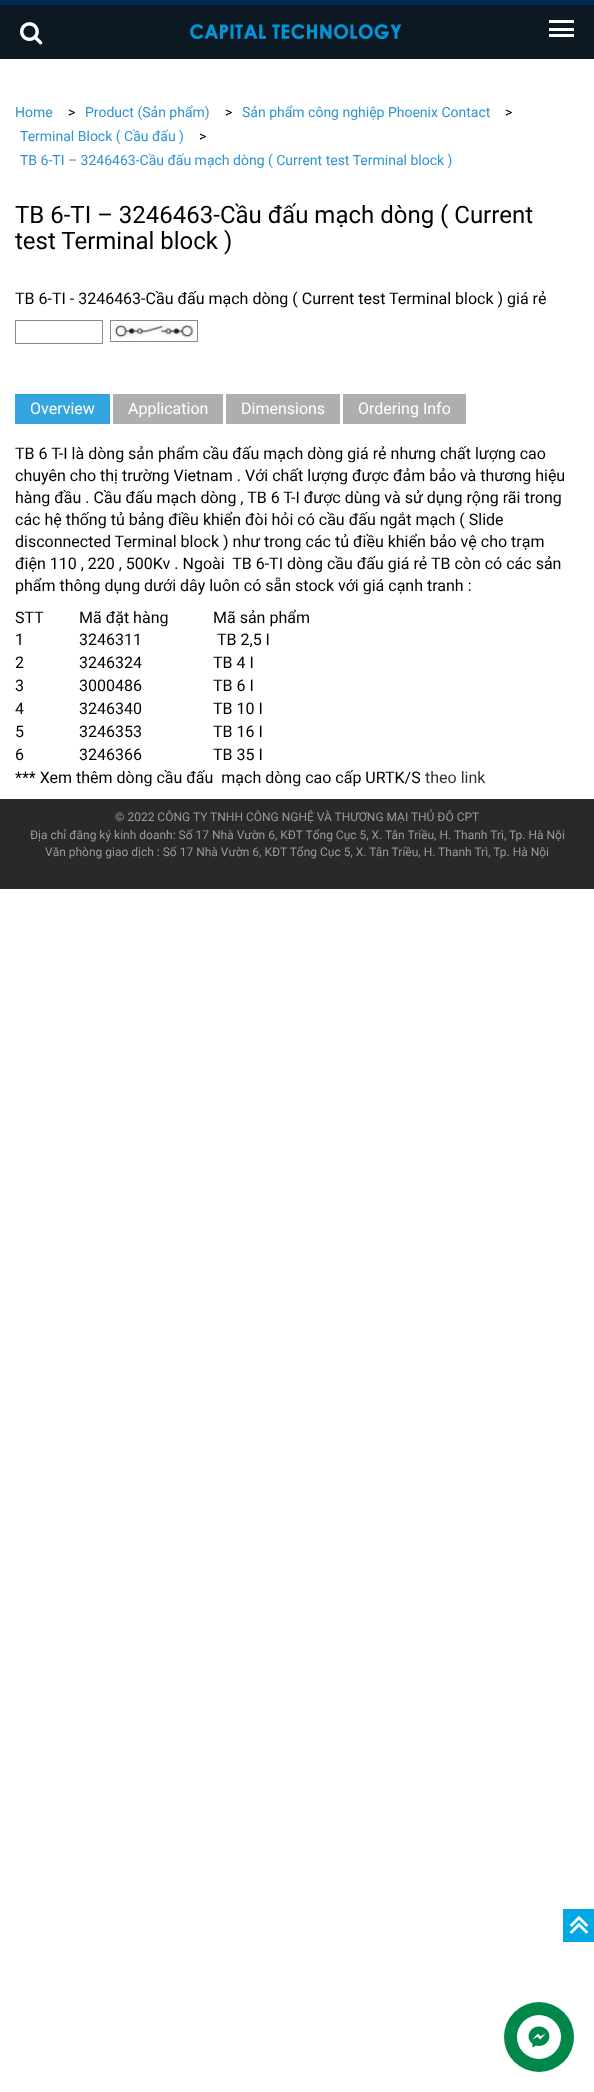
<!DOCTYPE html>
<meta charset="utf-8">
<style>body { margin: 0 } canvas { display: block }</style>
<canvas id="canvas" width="594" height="2092"></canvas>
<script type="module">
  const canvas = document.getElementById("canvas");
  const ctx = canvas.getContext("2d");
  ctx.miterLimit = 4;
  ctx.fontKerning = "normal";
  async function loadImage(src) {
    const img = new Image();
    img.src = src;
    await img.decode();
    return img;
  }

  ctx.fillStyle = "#ffffff";
  ctx.fillRect(0, 0, 594, 2092);
  ctx.fillStyle = "#0c1923";
  ctx.fillRect(0, 5, 594, 54);
  ctx.fillStyle = "#002a54";
  ctx.fillRect(0, 0, 594, 5);
  ctx.drawImage(await loadImage("img1.png"), 20, 22, 23, 23);
  ctx.drawImage(await loadImage("img2.png"), 190, 24, 211, 15);
  ctx.fillStyle = "#ffffff";
  ctx.fillRect(549, 20, 25, 3);
  ctx.fillRect(549, 28, 25, 3);
  ctx.fillRect(549, 34, 25, 3);
  ctx.font = "14px Roboto";
  ctx.fillStyle = "#2f94ce";
  ctx.fillText("Home", 15, 117);
  ctx.fillStyle = "#000000";
  ctx.fillText(">", 68, 117);
  ctx.fillStyle = "#2f94ce";
  ctx.fillText("Product (Sản phẩm)", 85, 117);
  ctx.fillStyle = "#000000";
  ctx.fillText(">", 225, 117);
  ctx.fillStyle = "#2f94ce";
  ctx.fillText("Sản phẩm công nghiệp Phoenix Contact", 242, 117);
  ctx.fillStyle = "#000000";
  ctx.fillText(">", 505, 117);
  ctx.fillStyle = "#2f94ce";
  ctx.fillText("Terminal Block ( Cầu đấu )", 20, 141);
  ctx.fillStyle = "#000000";
  ctx.fillText(">", 199, 141);
  ctx.fillStyle = "#2f94ce";
  ctx.fillText("TB 6-TI – 3246463-Cầu đấu mạch dòng ( Current test Terminal block )", 20, 165);
  ctx.font = "24px Roboto";
  ctx.fillStyle = "#000000";
  ctx.fillText("TB 6-TI – 3246463-Cầu đấu mạch dòng ( Current", 15, 223);
  ctx.fillText("test Terminal block )", 15, 249);
  ctx.font = "16px Roboto";
  ctx.fillText("TB 6-TI - 3246463-Cầu đấu mạch dòng ( Current test Terminal block ) giá rẻ", 15, 304);
  ctx.strokeStyle = "#8a8a8a";
  ctx.strokeRect(15.5, 320.5, 87, 23);
  ctx.strokeRect(110.5, 320.5, 87, 21);
  ctx.drawImage(await loadImage("img3.png"), 114, 324, 81, 14);
  ctx.fillStyle = "#34a5de";
  ctx.fillRect(15, 394, 95, 30);
  ctx.fillStyle = "#ffffff";
  ctx.fillText("Overview", 30, 414);
  ctx.fillStyle = "#aeaeae";
  ctx.fillRect(113, 394, 110, 30);
  ctx.fillStyle = "#ffffff";
  ctx.fillText("Application", 128, 414);
  ctx.fillStyle = "#aeaeae";
  ctx.fillRect(226, 394, 114, 30);
  ctx.fillStyle = "#ffffff";
  ctx.fillText("Dimensions", 241, 414);
  ctx.fillStyle = "#aeaeae";
  ctx.fillRect(343, 394, 123, 30);
  ctx.fillStyle = "#ffffff";
  ctx.fillText("Ordering Info", 358, 414);
  ctx.fillStyle = "#000000";
  ctx.fillText("TB 6 T-I là dòng sản phẩm cầu đấu mạch dòng giá rẻ nhưng chất lượng cao", 15, 459);
  ctx.fillText("chuyên cho thị trường Vietnam . Với chất lượng được đảm bảo và thương hiệu", 15, 481);
  ctx.fillText("hàng đầu . Cầu đấu mạch dòng , TB 6 T-I được dùng và sử dụng rộng rãi trong", 15, 503);
  ctx.fillText("các hệ thống tủ bảng điều khiển đòi hỏi có cầu đấu ngắt mạch ( Slide", 15, 525);
  ctx.fillText("disconnected Terminal block ) như trong các tủ điều khiển bảo vệ cho trạm", 15, 547);
  ctx.fillText("điện 110 , 220 , 500Kv . Ngoài  TB 6-TI dòng cầu đấu giá rẻ TB còn có các sản", 15, 569);
  ctx.fillText("phẩm thông dụng dưới dây luôn có sẵn stock với giá cạnh tranh :", 15, 591);
  ctx.fillText("STT", 15, 623);
  ctx.fillText("Mã đặt hàng", 79, 623);
  ctx.fillText("Mã sản phẩm", 213, 623);
  ctx.fillText("1", 15, 645);
  ctx.fillText("3246311", 79, 645);
  ctx.fillText("TB 2,5 I", 217, 645);
  ctx.fillText("2", 15, 668);
  ctx.fillText("3246324", 79, 668);
  ctx.fillText("TB 4 I", 213, 668);
  ctx.fillText("3", 15, 691);
  ctx.fillText("3000486", 79, 691);
  ctx.fillText("TB 6 I", 213, 691);
  ctx.fillText("4", 15, 714);
  ctx.fillText("3246340", 79, 714);
  ctx.fillText("TB 10 I", 213, 714);
  ctx.fillText("5", 15, 737);
  ctx.fillText("3246353", 79, 737);
  ctx.fillText("TB 16 I", 213, 737);
  ctx.fillText("6", 15, 760);
  ctx.fillText("3246366", 79, 760);
  ctx.fillText("TB 35 I", 213, 760);
  ctx.fillText("*** Xem thêm dòng cầu đấu  mạch dòng cao cấp URTK/S", 15, 783);
  ctx.fillStyle = "#333333";
  ctx.fillText("theo link", 425, 783);
  ctx.fillStyle = "#292929";
  ctx.fillRect(0, 799, 594, 90);
  ctx.font = "12px Roboto";
  ctx.fillStyle = "#999999";
  ctx.fillText("© 2022 CÔNG TY TNHH CÔNG NGHỆ VÀ THƯƠNG MẠI THỦ ĐÔ CPT", 115, 821);
  ctx.fillText("Địa chỉ đăng ký kinh doanh: Số 17 Nhà Vườn 6, KĐT Tổng Cục 5, X. Tân Triều, H. Thanh Trì, Tp. Hà Nội", 30, 839);
  ctx.fillText("Văn phòng giao dịch : Số 17 Nhà Vườn 6, KĐT Tổng Cục 5, X. Tân Triều, H. Thanh Trì, Tp. Hà Nội", 45, 856);
  ctx.fillStyle = "#008749";
  ctx.beginPath();
  ctx.arc(539, 2037, 35, 0, Math.PI * 2);
  ctx.fill();
  ctx.fillStyle = "#ffffff";
  ctx.beginPath();
  ctx.arc(539, 2037, 22, 0, Math.PI * 2);
  ctx.fill();
  ctx.drawImage(await loadImage("img4.png"), 528, 2026, 22, 22);
  ctx.drawImage(await loadImage("img5.png"), 563, 1909, 31, 33);
</script>
